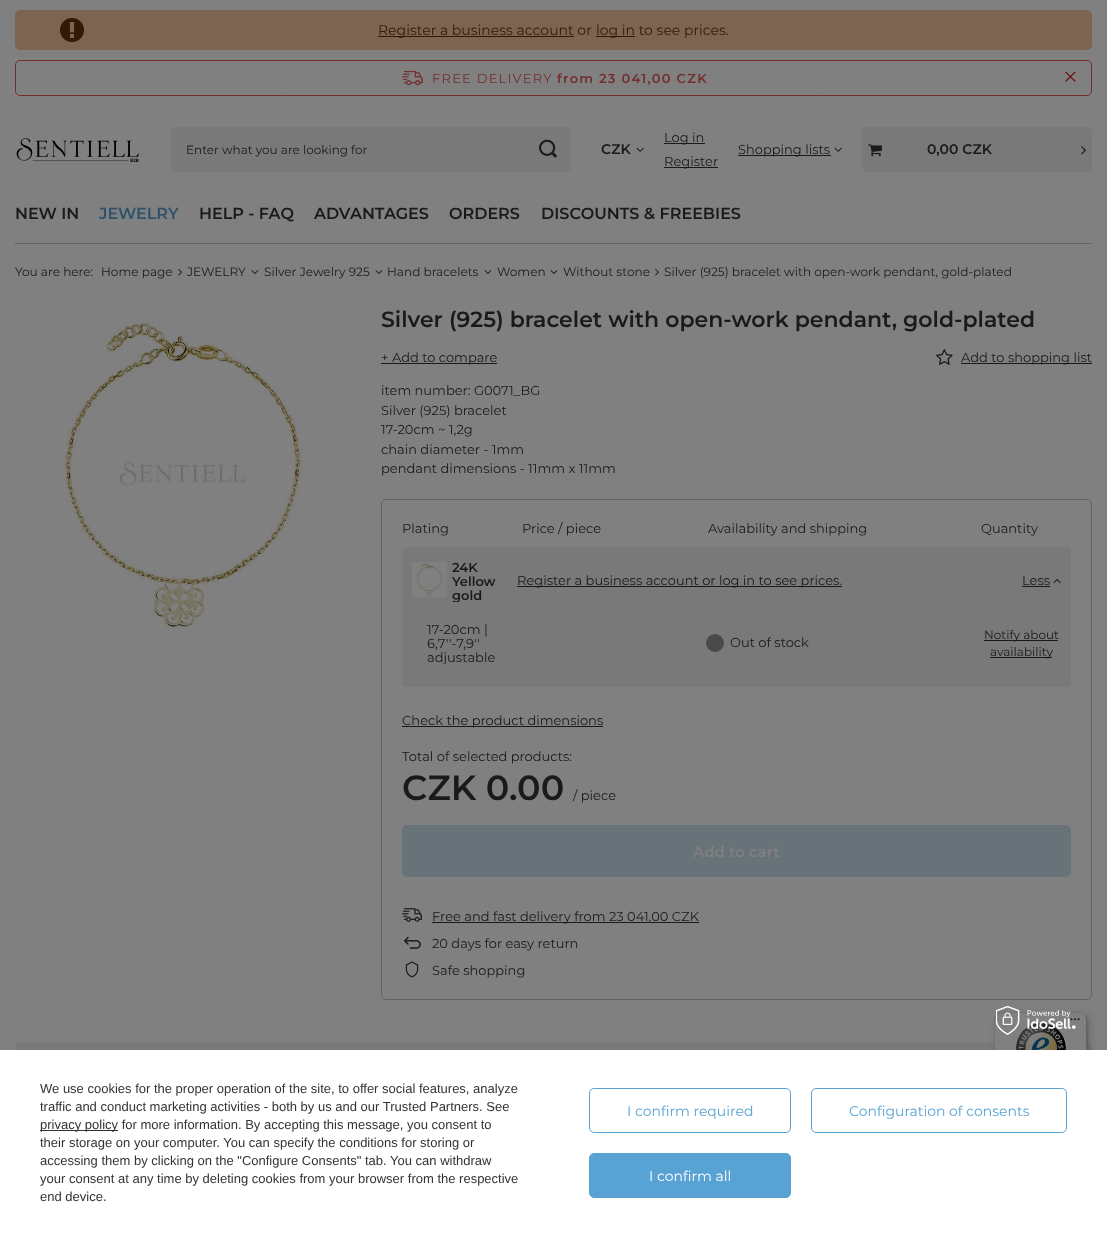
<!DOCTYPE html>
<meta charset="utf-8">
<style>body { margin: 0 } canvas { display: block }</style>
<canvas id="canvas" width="1107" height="1236"></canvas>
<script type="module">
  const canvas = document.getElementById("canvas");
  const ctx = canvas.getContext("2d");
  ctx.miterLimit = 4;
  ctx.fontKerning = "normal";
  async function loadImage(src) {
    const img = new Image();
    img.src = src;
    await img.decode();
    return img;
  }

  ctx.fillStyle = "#808080";
  ctx.fillRect(0, 0, 1107, 1236);
  ctx.fillStyle = "#7d6450";
  ctx.beginPath();
  ctx.roundRect(15.5, 10.5, 1076, 39, 4.5);
  ctx.fill();
  ctx.strokeStyle = "#7d6450";
  ctx.stroke();
  ctx.drawImage(await loadImage("img1.png"), 60, 18, 24, 24);
  ctx.fillStyle = "#311907";
  ctx.fillRect(378, 36, 196, 1);
  ctx.font = "14px Montserrat";
  ctx.fillText("Register a business account or", 378, 35);
  ctx.fillRect(596, 36, 39, 1);
  ctx.fillText("log in to see prices.", 596, 35);
  ctx.beginPath();
  ctx.roundRect(15.5, 60.5, 1076, 35, 4.5);
  ctx.strokeStyle = "#722e2e";
  ctx.stroke();
  ctx.drawImage(await loadImage("img2.png"), 401, 70, 22, 16);
  ctx.letterSpacing = "1.25px";
  ctx.font = "13px Montserrat";
  ctx.fillStyle = "#722e2e";
  ctx.fillText("FREE DELIVERY", 432, 83);
  ctx.font = "600 13px Montserrat";
  ctx.fillText("from 23 041,00 CZK", 557, 83);
  ctx.drawImage(await loadImage("img3.png"), 1065, 71, 11, 11);
  ctx.drawImage(await loadImage("img4.png"), 16, 138, 124, 24);
  ctx.fillStyle = "#797979";
  ctx.beginPath();
  ctx.roundRect(171, 127, 400, 45, 5);
  ctx.fill();
  ctx.letterSpacing = "0px";
  ctx.font = "12px Montserrat";
  ctx.fillStyle = "#1a1a1a";
  ctx.fillText("Enter what you are looking for", 186, 154);
  ctx.drawImage(await loadImage("img5.png"), 539, 139, 18, 19);
  ctx.font = "600 14px Montserrat";
  ctx.fillText("CZK", 601, 154);
  ctx.drawImage(await loadImage("img6.png"), 636, 147, 8, 5);
  ctx.fillRect(664, 143, 41, 1);
  ctx.font = "13px Montserrat";
  ctx.fillText("Log in", 664, 142);
  ctx.fillRect(664, 167, 54, 1);
  ctx.fillText("Register", 664, 166);
  ctx.fillRect(738, 155, 93, 1);
  ctx.fillText("Shopping lists", 738, 154);
  ctx.drawImage(await loadImage("img7.png"), 834, 147, 8, 5);
  ctx.fillStyle = "#797979";
  ctx.beginPath();
  ctx.roundRect(862, 127, 230, 45, 5);
  ctx.fill();
  ctx.drawImage(await loadImage("img8.png"), 868, 144, 14, 13);
  ctx.font = "600 14px Montserrat";
  ctx.fillStyle = "#1a1a1a";
  ctx.fillText("0,00 CZK", 927, 154);
  ctx.drawImage(await loadImage("img9.png"), 1081, 146, 5, 9);
  ctx.fillStyle = "#626464";
  ctx.fillRect(15, 243, 1077, 1);
  ctx.font = "600 16px Montserrat";
  ctx.fillStyle = "#1a1a1a";
  ctx.fillText("NEW IN", 15, 219);
  ctx.fillStyle = "#2d526a";
  ctx.fillText("JEWELRY", 99, 219);
  ctx.fillStyle = "#1a1a1a";
  ctx.fillText("HELP - FAQ", 199, 219);
  ctx.fillText("ADVANTAGES", 314, 219);
  ctx.fillText("ORDERS", 449, 219);
  ctx.fillText("DISCOUNTS & FREEBIES", 541, 219);
  ctx.font = "12.1px Montserrat";
  ctx.fillText("You are here:", 15, 276);
  ctx.fillText("Home page", 101, 276);
  ctx.drawImage(await loadImage("img10.png"), 178, 268, 4, 8);
  ctx.fillText("JEWELRY", 187, 276);
  ctx.drawImage(await loadImage("img11.png"), 251, 270, 8, 4);
  ctx.fillText("Silver Jewelry 925", 264, 276);
  ctx.drawImage(await loadImage("img11.png"), 375, 270, 8, 4);
  ctx.fillText("Hand bracelets", 387, 276);
  ctx.drawImage(await loadImage("img11.png"), 484, 270, 8, 4);
  ctx.fillText("Women", 497, 276);
  ctx.drawImage(await loadImage("img11.png"), 550, 270, 8, 4);
  ctx.fillText("Without stone", 563, 276);
  ctx.drawImage(await loadImage("img10.png"), 655, 268, 4, 8);
  ctx.fillText("Silver (925) bracelet with open-work pendant, gold-plated", 664, 276);
  ctx.drawImage(await loadImage("img12.png"), 63, 322, 239, 306);
  ctx.font = "600 22px Montserrat";
  ctx.fillText("Silver (925) bracelet with open-work pendant, gold-plated", 381, 327);
  ctx.fillRect(381, 363, 116, 1);
  ctx.font = "13px Montserrat";
  ctx.fillText("+ Add to compare", 381, 362);
  ctx.drawImage(await loadImage("img13.png"), 936, 349, 17, 16);
  ctx.fillRect(961, 363, 131, 1);
  ctx.fillText("Add to shopping list", 961, 362);
  ctx.fillText("item number: G0071_BG", 381, 395);
  ctx.fillText("Silver (925) bracelet", 381, 415);
  ctx.fillText("17-20cm ~ 1,2g", 381, 434);
  ctx.fillText("chain diameter - 1mm", 381, 454);
  ctx.fillText("pendant dimensions - 11mm x 11mm", 381, 473);
  ctx.beginPath();
  ctx.roundRect(381.5, 499.5, 710, 500, 4.5);
  ctx.strokeStyle = "#626464";
  ctx.stroke();
  ctx.fillText("Plating", 402, 533);
  ctx.fillText("Price / piece", 522, 533);
  ctx.fillText("Availability and shipping", 708, 533);
  ctx.fillText("Quantity", 981, 533);
  ctx.fillStyle = "#797979";
  ctx.beginPath();
  ctx.roundRect(402, 547, 669, 140, 5);
  ctx.fill();
  ctx.drawImage(await loadImage("img14.png"), 412, 562, 35, 35);
  ctx.font = "600 13px Montserrat";
  ctx.fillStyle = "#1a1a1a";
  ctx.fillText("24K", 452, 572);
  ctx.fillText("Yellow", 452, 586);
  ctx.save();
  ctx.beginPath();
  ctx.rect(452, 560, 60, 42);
  ctx.clip();
  ctx.fillText("gold", 452, 600);
  ctx.restore();
  ctx.fillRect(517, 586, 325, 1);
  ctx.font = "13px Montserrat";
  ctx.fillText("Register a business account or log in to see prices.", 517, 585);
  ctx.fillText("Less", 1022, 585);
  ctx.fillRect(1022, 586, 28, 1);
  ctx.drawImage(await loadImage("img15.png"), 1053, 579, 8, 5);
  ctx.fillText("17-20cm |", 427, 634);
  ctx.fillText("6,7''-7,9''", 427, 648);
  ctx.save();
  ctx.beginPath();
  ctx.rect(427, 622, 85, 42);
  ctx.clip();
  ctx.fillText("adjustable", 427, 662);
  ctx.restore();
  ctx.fillStyle = "#4a4a4a";
  ctx.beginPath();
  ctx.arc(715, 643, 9, 0, Math.PI * 2);
  ctx.fill();
  ctx.fillStyle = "#1a1a1a";
  ctx.fillText("Out of stock", 730, 647);
  ctx.fillRect(984, 640, 74, 1);
  ctx.font = "12px Montserrat";
  ctx.fillText("Notify about", 984, 639);
  ctx.fillRect(990, 657, 62, 1);
  ctx.fillText("availability", 990, 656);
  ctx.fillRect(402, 726, 201, 1);
  ctx.font = "13px Montserrat";
  ctx.fillText("Check the product dimensions", 402, 725);
  ctx.fillText("Total of selected products:", 402, 761);
  ctx.font = "600 35px Montserrat";
  ctx.fillText("CZK 0.00", 402, 800);
  ctx.font = "13px Montserrat";
  ctx.fillText("/ piece", 573, 800);
  ctx.fillStyle = "#677279";
  ctx.beginPath();
  ctx.roundRect(402.5, 825.5, 668, 51, 4.5);
  ctx.fill();
  ctx.strokeStyle = "#677279";
  ctx.stroke();
  ctx.font = "600 15px Montserrat";
  ctx.fillStyle = "#808080";
  ctx.fillText("Add to cart", 693, 857);
  ctx.drawImage(await loadImage("img16.png"), 402, 908, 20, 14);
  ctx.fillStyle = "#1a1a1a";
  ctx.fillRect(432, 922, 267, 1);
  ctx.font = "13px Montserrat";
  ctx.fillText("Free and fast delivery from 23 041,00 CZK", 432, 921);
  ctx.drawImage(await loadImage("img17.png"), 404, 936, 17, 13);
  ctx.fillText("20 days for easy return", 432, 948);
  ctx.drawImage(await loadImage("img18.png"), 405, 961, 14, 17);
  ctx.fillText("Safe shopping", 432, 975);
  ctx.fillStyle = "#797979";
  ctx.beginPath();
  ctx.roundRect(15, 1042, 1077, 149, 5);
  ctx.fill();
  ctx.fillStyle = "rgba(0, 0, 0, 0.15)";
  ctx.filter = "blur(4px)";
  ctx.beginPath();
  ctx.roundRect(997, 1015, 93, 170, 8);
  ctx.fill();
  ctx.filter = "none";
  ctx.filter = "blur(1px)";
  ctx.beginPath();
  ctx.roundRect(995, 1013, 93, 170, 8);
  ctx.fill();
  ctx.filter = "none";
  ctx.fillStyle = "#808080";
  ctx.beginPath();
  ctx.roundRect(994, 1012, 93, 170, 8);
  ctx.fill();
  ctx.fillStyle = "rgba(0, 0, 0, 0.1)";
  ctx.beginPath();
  ctx.moveTo(1003, 1013);
  ctx.lineTo(1080, 1013);
  ctx.bezierCurveTo(1082, 1013, 1084, 1014, 1086, 1016);
  ctx.bezierCurveTo(1084, 1014, 1082, 1012, 1079, 1012);
  ctx.lineTo(1002, 1012);
  ctx.bezierCurveTo(998, 1012, 994, 1016, 994, 1020);
  ctx.lineTo(994, 1174);
  ctx.bezierCurveTo(994, 1177, 996, 1179, 998, 1181);
  ctx.bezierCurveTo(996, 1179, 995, 1177, 995, 1175);
  ctx.lineTo(995, 1021);
  ctx.bezierCurveTo(995, 1017, 999, 1013, 1003, 1013);
  ctx.closePath();
  ctx.fill();
  ctx.fillStyle = "rgba(0, 0, 0, 0.2)";
  ctx.beginPath();
  ctx.moveTo(995, 1178);
  ctx.bezierCurveTo(997, 1180, 999, 1182, 1002, 1182);
  ctx.lineTo(1079, 1182);
  ctx.bezierCurveTo(1083, 1182, 1087, 1178, 1087, 1174);
  ctx.lineTo(1087, 1020);
  ctx.bezierCurveTo(1087, 1017, 1085, 1015, 1083, 1013);
  ctx.bezierCurveTo(1085, 1015, 1086, 1017, 1086, 1019);
  ctx.lineTo(1086, 1173);
  ctx.bezierCurveTo(1086, 1177, 1082, 1181, 1078, 1181);
  ctx.lineTo(1001, 1181);
  ctx.bezierCurveTo(999, 1181, 997, 1180, 995, 1178);
  ctx.closePath();
  ctx.fill();
  ctx.fillStyle = "rgba(25, 25, 25, 0.2)";
  ctx.beginPath();
  ctx.moveTo(996, 1179);
  ctx.bezierCurveTo(997, 1181, 1000, 1182, 1002, 1182);
  ctx.lineTo(1079, 1182);
  ctx.bezierCurveTo(1083, 1182, 1087, 1178, 1087, 1174);
  ctx.lineTo(1087, 1020);
  ctx.bezierCurveTo(1087, 1018, 1086, 1015, 1084, 1014);
  ctx.bezierCurveTo(1085, 1015, 1086, 1017, 1086, 1019);
  ctx.lineTo(1086, 1173);
  ctx.bezierCurveTo(1086, 1178, 1083, 1181, 1078, 1181);
  ctx.lineTo(1001, 1181);
  ctx.bezierCurveTo(999, 1181, 997, 1180, 996, 1179);
  ctx.closePath();
  ctx.fill();
  ctx.fillStyle = "rgba(128, 128, 128, 0.3)";
  ctx.beginPath();
  ctx.moveTo(1078, 1182);
  ctx.lineTo(1079, 1182);
  ctx.bezierCurveTo(1083, 1182, 1087, 1178, 1087, 1174);
  ctx.lineTo(1087, 1020);
  ctx.bezierCurveTo(1087, 1016, 1083, 1012, 1079, 1012);
  ctx.lineTo(1078, 1012);
  ctx.bezierCurveTo(1083, 1012, 1086, 1015, 1086, 1020);
  ctx.lineTo(1086, 1174);
  ctx.bezierCurveTo(1086, 1178, 1083, 1182, 1078, 1182);
  ctx.closePath();
  ctx.fill();
  ctx.fillStyle = "#ffffff";
  ctx.fillRect(0, 1050, 1107, 186);
  ctx.drawImage(await loadImage("img20.png"), 1016, 1023, 50, 27);
  ctx.drawImage(await loadImage("img21.png"), 1070, 1018, 10, 3);
  ctx.drawImage(await loadImage("img19.png"), 996, 1006, 80, 29);
  ctx.font = "13px Liberation Sans";
  ctx.fillStyle = "#333333";
  ctx.fillText("We use cookies for the proper operation of the site, to offer social features, analyze", 40, 1093);
  ctx.fillText("traffic and conduct marketing activities - both by us and our Trusted Partners. See", 40, 1111);
  ctx.fillRect(40, 1130, 78, 1);
  ctx.fillText("privacy policy for more information. By accepting this message, you consent to", 40, 1129);
  ctx.fillText("their storage on your computer. You can specify the conditions for storing or", 40, 1147);
  ctx.fillText("accessing them by clicking on the \"Configure Consents\" tab. You can withdraw", 40, 1165);
  ctx.fillText("your consent at any time by deleting cookies from your browser from the respective", 40, 1183);
  ctx.fillText("end device.", 40, 1201);
  ctx.beginPath();
  ctx.roundRect(589.5, 1088.5, 201, 44, 4.5);
  ctx.strokeStyle = "#59a3d4";
  ctx.stroke();
  ctx.font = "14px Montserrat";
  ctx.fillStyle = "#59a3d4";
  ctx.fillText("I confirm required", 627, 1116);
  ctx.beginPath();
  ctx.roundRect(811.5, 1088.5, 255, 44, 4.5);
  ctx.stroke();
  ctx.fillText("Configuration of consents", 849, 1116);
  ctx.beginPath();
  ctx.roundRect(589.5, 1153.5, 201, 44, 4.5);
  ctx.fill();
  ctx.stroke();
  ctx.fillStyle = "#ffffff";
  ctx.fillText("I confirm all", 649, 1181);
</script>
